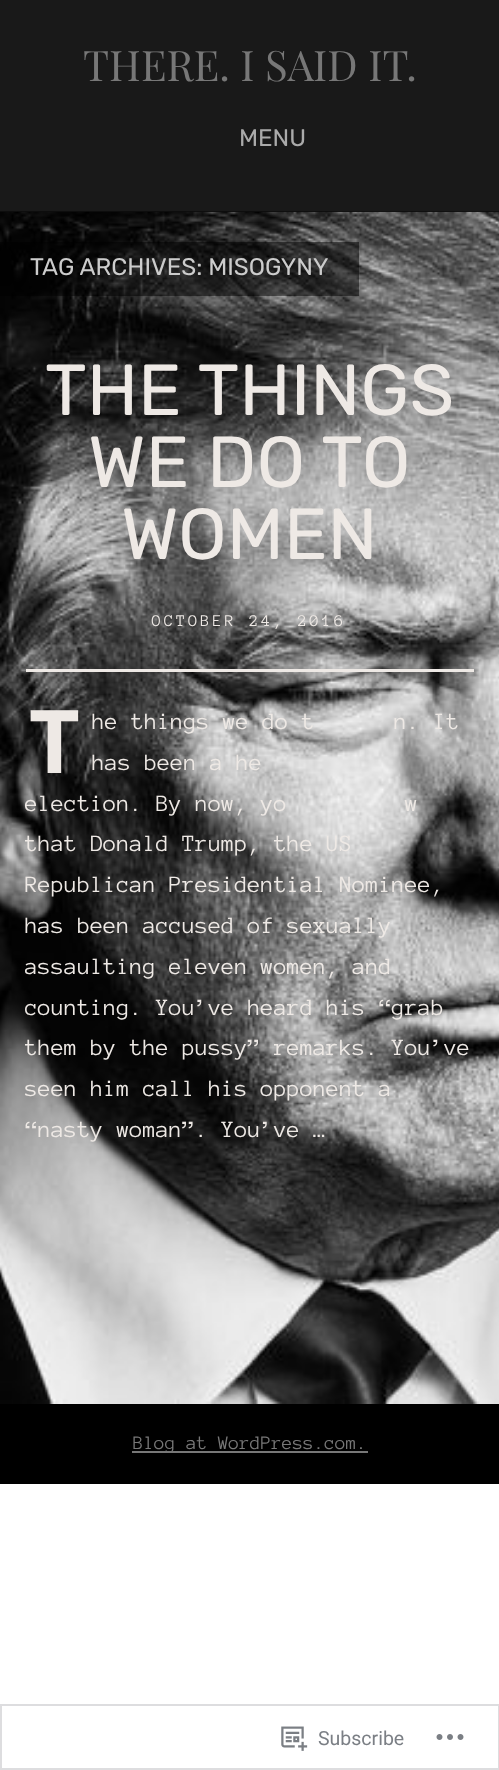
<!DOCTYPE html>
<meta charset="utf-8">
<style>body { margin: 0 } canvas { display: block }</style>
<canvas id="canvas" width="499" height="1770"></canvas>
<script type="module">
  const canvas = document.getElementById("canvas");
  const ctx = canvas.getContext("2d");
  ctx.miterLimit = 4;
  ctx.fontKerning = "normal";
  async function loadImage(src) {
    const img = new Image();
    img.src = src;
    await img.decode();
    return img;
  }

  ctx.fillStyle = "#ffffff";
  ctx.fillRect(0, 0, 499, 1770);
  ctx.drawImage(await loadImage("img1.png"), 0, 211, 499, 1193);
  ctx.save();
  ctx.beginPath();
  ctx.moveTo(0, 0);
  ctx.lineTo(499, 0);
  ctx.lineTo(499, 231);
  ctx.lineTo(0, 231);
  ctx.closePath();
  ctx.moveTo(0, 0);
  ctx.lineTo(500, 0);
  ctx.lineTo(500, 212);
  ctx.lineTo(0, 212);
  ctx.closePath();
  ctx.clip("evenodd");
  ctx.fillStyle = "rgba(0, 0, 0, 0.2)";
  ctx.filter = "blur(4.5px)";
  ctx.beginPath();
  ctx.rect(0, 5, 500, 211);
  ctx.fill();
  ctx.filter = "none";
  ctx.restore();
  ctx.fillStyle = "rgba(0, 0, 0, 0.9)";
  ctx.fillRect(0, 0, 499, 212);
  ctx.font = "42px Playfair Display";
  ctx.fillStyle = "#777777";
  ctx.fillText("THERE. I SAID IT.", 83, 81);
  ctx.font = "300 24px Rubik";
  ctx.fillStyle = "#aaaaaa";
  ctx.fillText("MENU", 239, 146);
  ctx.fillStyle = "rgba(0, 0, 0, 0.5)";
  ctx.fillRect(0, 242, 359, 54);
  ctx.fillStyle = "#cccccc";
  ctx.fillText("TAG ARCHIVES: MISOGYNY", 30, 275);
  ctx.font = "300 72px Rubik";
  ctx.fillStyle = "#eee9e5";
  ctx.fillText("THE THINGS", 45, 415);
  ctx.fillText("WE DO TO", 88, 487);
  ctx.fillText("WOMEN", 121, 559);
  ctx.letterSpacing = "3px";
  ctx.font = "16.75px Anonymous Pro";
  ctx.fillText("OCTOBER 24, 2016", 152, 626);
  ctx.fillRect(26, 669, 448, 3);
  ctx.letterSpacing = "0px";
  ctx.font = "bold 88px Noto Sans";
  ctx.fillText("T", 29, 773);
  ctx.font = "24px Anonymous Pro";
  ctx.fillText("he things we do t", 92, 729);
  ctx.fillText("n. It", 394, 729);
  ctx.fillText("has been a he", 92, 770);
  ctx.fillText("election. By now, yo", 25, 811);
  ctx.fillText("w", 405, 811);
  ctx.fillText("that Donald Trump, the US", 25, 851);
  ctx.fillText("Republican Presidential Nominee,", 25, 892);
  ctx.fillText("has been accused of sexually", 25, 933);
  ctx.fillText("assaulting eleven women, and", 25, 974);
  ctx.fillText("counting. You’ve heard his “grab", 25, 1015);
  ctx.fillText("them by the pussy” remarks. You’ve", 25, 1055);
  ctx.fillText("seen him call his opponent a", 25, 1096);
  ctx.fillText("“nasty woman”. You’ve …", 25, 1137);
  ctx.fillStyle = "#000000";
  ctx.fillRect(0, 1404, 499, 80);
  ctx.fillStyle = "#777777";
  ctx.fillRect(132, 1451, 236, 2);
  ctx.font = "19.5px Anonymous Pro";
  ctx.fillText("Blog at WordPress.com.", 133, 1449);
  ctx.strokeStyle = "#dddddf";
  ctx.lineWidth = 2;
  ctx.strokeRect(1, 1705, 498, 64);
  ctx.drawImage(await loadImage("img2.png"), 281, 1726, 27, 25);
  ctx.font = "19.5px Roboto";
  ctx.fillStyle = "#7b7f85";
  ctx.fillText("Subscribe", 318, 1745);
  ctx.drawImage(await loadImage("img3.png"), 436, 1734, 28, 6);
</script>
